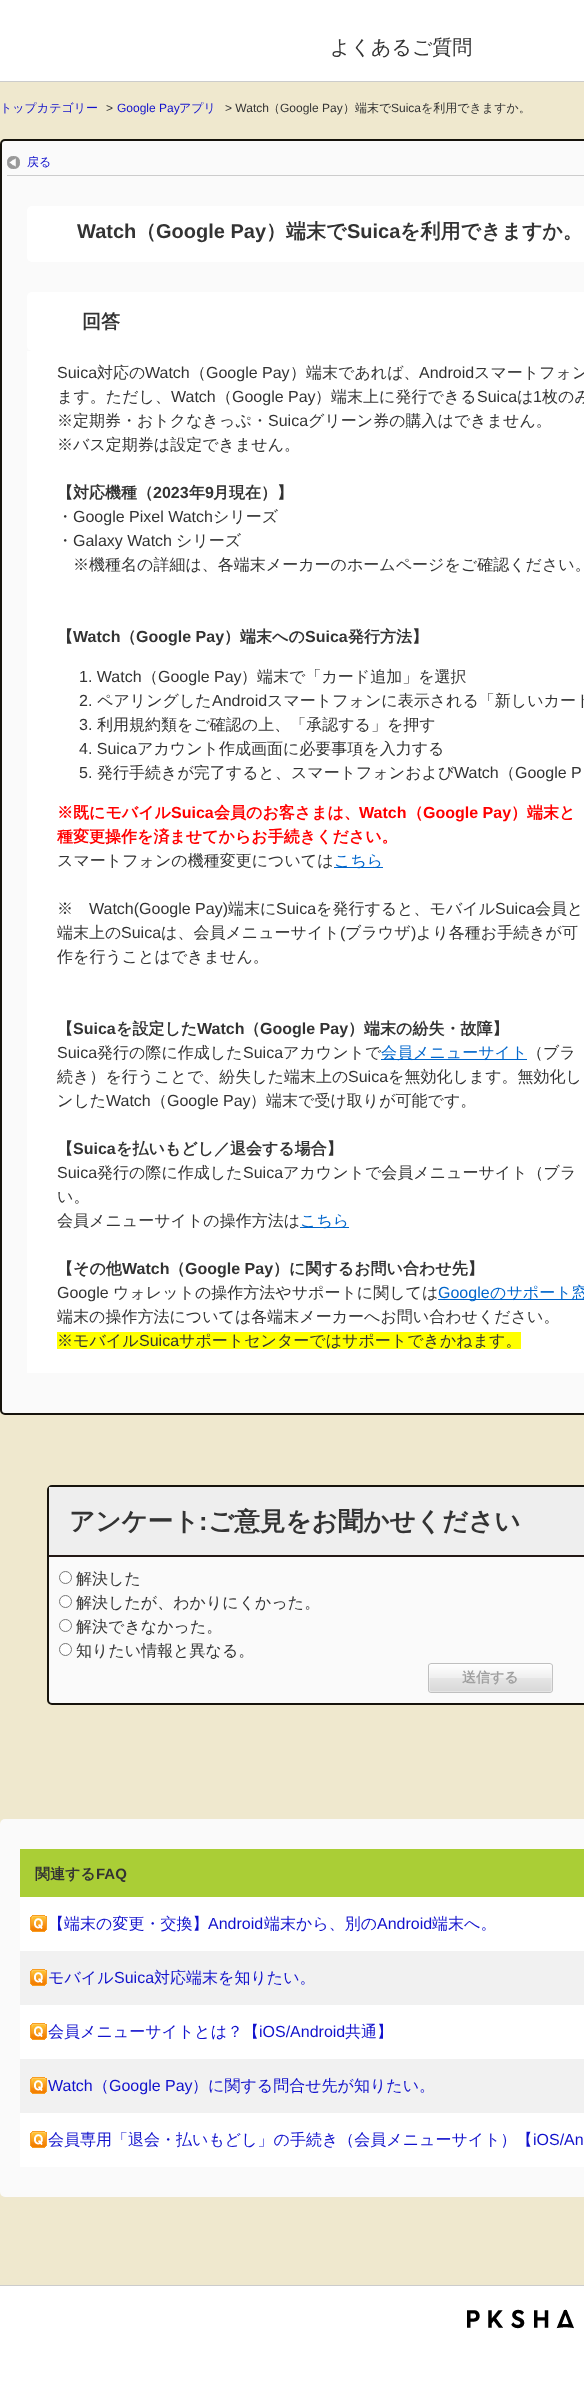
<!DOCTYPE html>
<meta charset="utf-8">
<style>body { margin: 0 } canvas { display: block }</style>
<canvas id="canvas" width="584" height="2384"></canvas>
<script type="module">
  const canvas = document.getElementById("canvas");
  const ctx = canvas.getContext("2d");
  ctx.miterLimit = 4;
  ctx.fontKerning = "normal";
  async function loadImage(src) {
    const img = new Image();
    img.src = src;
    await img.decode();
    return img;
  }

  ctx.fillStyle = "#ffffff";
  ctx.fillRect(0, 0, 584, 2384);
  ctx.fillStyle = "#cccccc";
  ctx.fillRect(0, 81, 584, 1);
  ctx.font = "500 20px WenQuanYi Zen Hei";
  ctx.fillStyle = "#333333";
  ctx.fillText("よくあるご質問", 330, 54);
  ctx.fillStyle = "#efe8ce";
  ctx.fillRect(0, 82, 584, 2203);
  ctx.font = "500 12px WenQuanYi Zen Hei";
  ctx.fillStyle = "#1111cc";
  ctx.fillText("トップカテゴリー", 0, 112);
  ctx.font = "12px Liberation Sans";
  ctx.fillStyle = "#333333";
  ctx.fillText(">", 106, 112);
  ctx.fillStyle = "#1111cc";
  ctx.fillText("Google Pay", 117, 112);
  ctx.font = "500 12px WenQuanYi Zen Hei";
  ctx.fillText("アプリ", 179, 112);
  ctx.font = "12px Liberation Sans";
  ctx.fillStyle = "#333333";
  ctx.fillText("> Watch", 225, 112);
  ctx.font = "500 12px WenQuanYi Zen Hei";
  ctx.fillText("（", 268, 112);
  ctx.font = "12px Liberation Sans";
  ctx.fillText("Google Pay", 280, 112);
  ctx.font = "500 12px WenQuanYi Zen Hei";
  ctx.fillText("）端末で", 343, 112);
  ctx.font = "12px Liberation Sans";
  ctx.fillText("Suica", 391, 112);
  ctx.font = "500 12px WenQuanYi Zen Hei";
  ctx.fillText("を利用できますか。", 421, 112);
  ctx.fillStyle = "#fafafa";
  ctx.beginPath();
  ctx.roundRect(1, 140, 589, 1274, 4);
  ctx.fill();
  ctx.strokeStyle = "#16130c";
  ctx.lineWidth = 2;
  ctx.stroke();
  ctx.fillStyle = "#cccccc";
  ctx.fillRect(7, 175, 577, 1);
  ctx.drawImage(await loadImage("img1.png"), 7, 156, 13, 13);
  ctx.fillStyle = "#1111cc";
  ctx.fillText("戻る", 27, 166);
  ctx.fillStyle = "#ffffff";
  ctx.beginPath();
  ctx.roundRect(27, 206, 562, 56, 5);
  ctx.fill();
  ctx.font = "bold 20px Liberation Sans";
  ctx.fillStyle = "#333333";
  ctx.fillText("Watch", 77, 238);
  ctx.font = "bold 20px WenQuanYi Zen Hei";
  ctx.fillText("（", 136, 238);
  ctx.font = "bold 20px Liberation Sans";
  ctx.fillText("Google Pay", 156, 238);
  ctx.font = "bold 20px WenQuanYi Zen Hei";
  ctx.fillText("）端末で", 266, 238);
  ctx.font = "bold 20px Liberation Sans";
  ctx.fillText("Suica", 347, 238);
  ctx.font = "bold 20px WenQuanYi Zen Hei";
  ctx.fillText("を利用できますか。", 400, 238);
  ctx.fillStyle = "#ffffff";
  ctx.beginPath();
  ctx.roundRect(27, 292, 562, 59, 5);
  ctx.fill();
  ctx.font = "bold 19px WenQuanYi Zen Hei";
  ctx.fillStyle = "#333333";
  ctx.fillText("回答", 82, 328);
  ctx.fillStyle = "#ffffff";
  ctx.fillRect(27, 351, 557, 1022);
  ctx.font = "16px Liberation Sans";
  ctx.fillStyle = "#333333";
  ctx.fillText("Suica", 57, 378);
  ctx.font = "500 16px WenQuanYi Zen Hei";
  ctx.fillText("対応の", 97, 378);
  ctx.font = "16px Liberation Sans";
  ctx.fillText("Watch", 145, 378);
  ctx.font = "500 16px WenQuanYi Zen Hei";
  ctx.fillText("（", 190, 378);
  ctx.font = "16px Liberation Sans";
  ctx.fillText("Google Pay", 206, 378);
  ctx.font = "500 16px WenQuanYi Zen Hei";
  ctx.fillText("）端末であれば、", 290, 378);
  ctx.font = "16px Liberation Sans";
  ctx.fillText("Android", 419, 378);
  ctx.font = "500 16px WenQuanYi Zen Hei";
  ctx.fillText("スマートフォン", 474, 378);
  ctx.fillText("ます。ただし、", 57, 402);
  ctx.font = "16px Liberation Sans";
  ctx.fillText("Watch", 171, 402);
  ctx.font = "500 16px WenQuanYi Zen Hei";
  ctx.fillText("（", 216, 402);
  ctx.font = "16px Liberation Sans";
  ctx.fillText("Google Pay", 232, 402);
  ctx.font = "500 16px WenQuanYi Zen Hei";
  ctx.fillText("）端末上に発行できる", 315, 402);
  ctx.font = "16px Liberation Sans";
  ctx.fillText("Suica", 477, 402);
  ctx.font = "500 16px WenQuanYi Zen Hei";
  ctx.fillText("は", 517, 402);
  ctx.font = "16px Liberation Sans";
  ctx.fillText("1", 533, 402);
  ctx.font = "500 16px WenQuanYi Zen Hei";
  ctx.fillText("枚のみ", 542, 402);
  ctx.fillText("※定期券・おトクなきっぷ・", 57, 426);
  ctx.font = "16px Liberation Sans";
  ctx.fillText("Suica", 268, 426);
  ctx.font = "500 16px WenQuanYi Zen Hei";
  ctx.fillText("グリーン券の購入はできません。", 308, 426);
  ctx.fillText("※バス定期券は設定できません。", 57, 450);
  ctx.font = "bold 16px WenQuanYi Zen Hei";
  ctx.fillText("【対応機種（", 57, 498);
  ctx.font = "bold 16px Liberation Sans";
  ctx.fillText("2023", 153, 498);
  ctx.font = "bold 16px WenQuanYi Zen Hei";
  ctx.fillText("年", 189, 498);
  ctx.font = "bold 16px Liberation Sans";
  ctx.fillText("9", 205, 498);
  ctx.font = "bold 16px WenQuanYi Zen Hei";
  ctx.fillText("月現在）】", 213, 498);
  ctx.font = "500 16px WenQuanYi Zen Hei";
  ctx.fillText("・", 57, 522);
  ctx.font = "16px Liberation Sans";
  ctx.fillText("Google Pixel Watch", 73, 522);
  ctx.font = "500 16px WenQuanYi Zen Hei";
  ctx.fillText("シリーズ", 213, 522);
  ctx.fillText("・", 57, 546);
  ctx.font = "16px Liberation Sans";
  ctx.fillText("Galaxy Watch", 73, 546);
  ctx.font = "500 16px WenQuanYi Zen Hei";
  ctx.fillText("シリーズ", 176, 546);
  ctx.fillText("※機種名の詳細は、各端末メーカーのホームページをご確認ください。", 73, 570);
  ctx.font = "bold 16px WenQuanYi Zen Hei";
  ctx.fillText("【", 57, 642);
  ctx.font = "bold 16px Liberation Sans";
  ctx.fillText("Watch", 73, 642);
  ctx.font = "bold 16px WenQuanYi Zen Hei";
  ctx.fillText("（", 120, 642);
  ctx.font = "bold 16px Liberation Sans";
  ctx.fillText("Google Pay", 136, 642);
  ctx.font = "bold 16px WenQuanYi Zen Hei";
  ctx.fillText("）端末への", 224, 642);
  ctx.font = "bold 16px Liberation Sans";
  ctx.fillText("Suica", 305, 642);
  ctx.font = "bold 16px WenQuanYi Zen Hei";
  ctx.fillText("発行方法】", 348, 642);
  ctx.font = "16px Liberation Sans";
  ctx.fillText("1. Watch", 79, 682);
  ctx.font = "500 16px WenQuanYi Zen Hei";
  ctx.fillText("（", 142, 682);
  ctx.font = "16px Liberation Sans";
  ctx.fillText("Google Pay", 158, 682);
  ctx.font = "500 16px WenQuanYi Zen Hei";
  ctx.fillText("）端末で「カード追加」を選択", 241, 682);
  ctx.font = "16px Liberation Sans";
  ctx.fillText("2.", 79, 706);
  ctx.font = "500 16px WenQuanYi Zen Hei";
  ctx.fillText("ペアリングした", 97, 706);
  ctx.font = "16px Liberation Sans";
  ctx.fillText("Android", 212, 706);
  ctx.font = "500 16px WenQuanYi Zen Hei";
  ctx.fillText("スマートフォンに表示される「新しいカード", 267, 706);
  ctx.font = "16px Liberation Sans";
  ctx.fillText("3.", 79, 730);
  ctx.font = "500 16px WenQuanYi Zen Hei";
  ctx.fillText("利用規約類をご確認の上、「承認する」を押す", 97, 730);
  ctx.font = "16px Liberation Sans";
  ctx.fillText("4. Suica", 79, 754);
  ctx.font = "500 16px WenQuanYi Zen Hei";
  ctx.fillText("アカウント作成画面に必要事項を入力する", 137, 754);
  ctx.font = "16px Liberation Sans";
  ctx.fillText("5.", 79, 778);
  ctx.font = "500 16px WenQuanYi Zen Hei";
  ctx.fillText("発行手続きが完了すると、スマートフォンおよび", 97, 778);
  ctx.font = "16px Liberation Sans";
  ctx.fillText("Watch", 454, 778);
  ctx.font = "500 16px WenQuanYi Zen Hei";
  ctx.fillText("（", 499, 778);
  ctx.font = "16px Liberation Sans";
  ctx.fillText("Google P", 515, 778);
  ctx.font = "bold 16px WenQuanYi Zen Hei";
  ctx.fillStyle = "#ff0000";
  ctx.fillText("※既にモバイル", 57, 818);
  ctx.font = "bold 16px Liberation Sans";
  ctx.fillText("Suica", 171, 818);
  ctx.font = "bold 16px WenQuanYi Zen Hei";
  ctx.fillText("会員のお客さまは、", 214, 818);
  ctx.font = "bold 16px Liberation Sans";
  ctx.fillText("Watch", 359, 818);
  ctx.font = "bold 16px WenQuanYi Zen Hei";
  ctx.fillText("（", 407, 818);
  ctx.font = "bold 16px Liberation Sans";
  ctx.fillText("Google Pay", 423, 818);
  ctx.font = "bold 16px WenQuanYi Zen Hei";
  ctx.fillText("）端末と", 511, 818);
  ctx.fillText("種変更操作を済ませてからお手続きください。", 57, 842);
  ctx.font = "500 16px WenQuanYi Zen Hei";
  ctx.fillStyle = "#333333";
  ctx.fillText("スマートフォンの機種変更については", 57, 866);
  ctx.fillStyle = "#0066cc";
  ctx.fillRect(334, 867, 49, 1);
  ctx.fillText("こちら", 334, 866);
  ctx.fillStyle = "#333333";
  ctx.fillText("※", 57, 914);
  ctx.font = "16px Liberation Sans";
  ctx.fillText("Watch(Google Pay)", 89, 914);
  ctx.font = "500 16px WenQuanYi Zen Hei";
  ctx.fillText("端末に", 228, 914);
  ctx.font = "16px Liberation Sans";
  ctx.fillText("Suica", 276, 914);
  ctx.font = "500 16px WenQuanYi Zen Hei";
  ctx.fillText("を発行すると、モバイル", 316, 914);
  ctx.font = "16px Liberation Sans";
  ctx.fillText("Suica", 495, 914);
  ctx.font = "500 16px WenQuanYi Zen Hei";
  ctx.fillText("会員と", 535, 914);
  ctx.fillText("端末上の", 57, 938);
  ctx.font = "16px Liberation Sans";
  ctx.fillText("Suica", 121, 938);
  ctx.font = "500 16px WenQuanYi Zen Hei";
  ctx.fillText("は、会員メニューサイト", 161, 938);
  ctx.font = "16px Liberation Sans";
  ctx.fillText("(", 340, 938);
  ctx.font = "500 16px WenQuanYi Zen Hei";
  ctx.fillText("ブラウザ", 345, 938);
  ctx.font = "16px Liberation Sans";
  ctx.fillText(")", 411, 938);
  ctx.font = "500 16px WenQuanYi Zen Hei";
  ctx.fillText("より各種お手続きが可", 416, 938);
  ctx.fillText("作を行うことはできません。", 57, 962);
  ctx.font = "bold 16px WenQuanYi Zen Hei";
  ctx.fillText("【", 57, 1034);
  ctx.font = "bold 16px Liberation Sans";
  ctx.fillText("Suica", 73, 1034);
  ctx.font = "bold 16px WenQuanYi Zen Hei";
  ctx.fillText("を設定した", 116, 1034);
  ctx.font = "bold 16px Liberation Sans";
  ctx.fillText("Watch", 197, 1034);
  ctx.font = "bold 16px WenQuanYi Zen Hei";
  ctx.fillText("（", 244, 1034);
  ctx.font = "bold 16px Liberation Sans";
  ctx.fillText("Google Pay", 260, 1034);
  ctx.font = "bold 16px WenQuanYi Zen Hei";
  ctx.fillText("）端末の紛失・故障】", 348, 1034);
  ctx.font = "16px Liberation Sans";
  ctx.fillText("Suica", 57, 1058);
  ctx.font = "500 16px WenQuanYi Zen Hei";
  ctx.fillText("発行の際に作成した", 97, 1058);
  ctx.font = "16px Liberation Sans";
  ctx.fillText("Suica", 243, 1058);
  ctx.font = "500 16px WenQuanYi Zen Hei";
  ctx.fillText("アカウントで", 283, 1058);
  ctx.fillStyle = "#0066cc";
  ctx.fillRect(381, 1059, 146, 1);
  ctx.fillText("会員メニューサイト", 381, 1058);
  ctx.fillStyle = "#333333";
  ctx.fillText("（ブラ", 527, 1058);
  ctx.fillText("続き）を行うことで、紛失した端末上の", 57, 1082);
  ctx.font = "16px Liberation Sans";
  ctx.fillText("Suica", 348, 1082);
  ctx.font = "500 16px WenQuanYi Zen Hei";
  ctx.fillText("を無効化します。無効化し", 388, 1082);
  ctx.fillText("ンした", 57, 1106);
  ctx.font = "16px Liberation Sans";
  ctx.fillText("Watch", 106, 1106);
  ctx.font = "500 16px WenQuanYi Zen Hei";
  ctx.fillText("（", 151, 1106);
  ctx.font = "16px Liberation Sans";
  ctx.fillText("Google Pay", 167, 1106);
  ctx.font = "500 16px WenQuanYi Zen Hei";
  ctx.fillText("）端末で受け取りが可能です。", 250, 1106);
  ctx.font = "bold 16px WenQuanYi Zen Hei";
  ctx.fillText("【", 57, 1154);
  ctx.font = "bold 16px Liberation Sans";
  ctx.fillText("Suica", 73, 1154);
  ctx.font = "bold 16px WenQuanYi Zen Hei";
  ctx.fillText("を払いもどし／退会する場合】", 116, 1154);
  ctx.font = "16px Liberation Sans";
  ctx.fillText("Suica", 57, 1178);
  ctx.font = "500 16px WenQuanYi Zen Hei";
  ctx.fillText("発行の際に作成した", 97, 1178);
  ctx.font = "16px Liberation Sans";
  ctx.fillText("Suica", 243, 1178);
  ctx.font = "500 16px WenQuanYi Zen Hei";
  ctx.fillText("アカウントで会員メニューサイト（ブラ", 283, 1178);
  ctx.fillText("い。", 57, 1202);
  ctx.fillText("会員メニューサイトの操作方法は", 57, 1226);
  ctx.fillStyle = "#0066cc";
  ctx.fillRect(300, 1227, 49, 1);
  ctx.fillText("こちら", 300, 1226);
  ctx.font = "bold 16px WenQuanYi Zen Hei";
  ctx.fillStyle = "#333333";
  ctx.fillText("【その他", 57, 1274);
  ctx.font = "bold 16px Liberation Sans";
  ctx.fillText("Watch", 122, 1274);
  ctx.font = "bold 16px WenQuanYi Zen Hei";
  ctx.fillText("（", 169, 1274);
  ctx.font = "bold 16px Liberation Sans";
  ctx.fillText("Google Pay", 185, 1274);
  ctx.font = "bold 16px WenQuanYi Zen Hei";
  ctx.fillText("）に関するお問い合わせ先】", 273, 1274);
  ctx.font = "16px Liberation Sans";
  ctx.fillText("Google", 57, 1298);
  ctx.font = "500 16px WenQuanYi Zen Hei";
  ctx.fillText("ウォレットの操作方法やサポートに関しては", 113, 1298);
  ctx.fillStyle = "#0066cc";
  ctx.fillRect(438, 1299, 146, 1);
  ctx.font = "16px Liberation Sans";
  ctx.fillText("Google", 438, 1298);
  ctx.font = "500 16px WenQuanYi Zen Hei";
  ctx.fillText("のサポート窓", 490, 1298);
  ctx.fillStyle = "#333333";
  ctx.fillText("端末の操作方法については各端末メーカーへお問い合わせください。", 57, 1322);
  ctx.fillStyle = "#ffff00";
  ctx.fillRect(57, 1332, 464, 17);
  ctx.fillStyle = "#333333";
  ctx.fillText("※モバイル", 57, 1346);
  ctx.font = "16px Liberation Sans";
  ctx.fillText("Suica", 139, 1346);
  ctx.font = "500 16px WenQuanYi Zen Hei";
  ctx.fillText("サポートセンターではサポートできかねます。", 179, 1346);
  ctx.fillStyle = "#fafafa";
  ctx.beginPath();
  ctx.roundRect(48, 1486, 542, 218, 4);
  ctx.fill();
  ctx.stroke();
  ctx.fillStyle = "#eeeeee";
  ctx.fillRect(49, 1487, 535, 68);
  ctx.fillStyle = "#231815";
  ctx.fillRect(49, 1555, 535, 2);
  ctx.font = "bold 25.6px WenQuanYi Zen Hei";
  ctx.fillStyle = "#333333";
  ctx.fillText("アンケート", 69, 1530);
  ctx.font = "bold 25.6px Liberation Sans";
  ctx.fillText(":", 199, 1530);
  ctx.font = "bold 25.6px WenQuanYi Zen Hei";
  ctx.fillText("ご意見をお聞かせください", 208, 1530);
  ctx.fillStyle = "#ffffff";
  ctx.beginPath();
  ctx.arc(65.5, 1577.5, 6, 0, Math.PI * 2);
  ctx.fill();
  ctx.strokeStyle = "#767676";
  ctx.lineWidth = 1;
  ctx.stroke();
  ctx.font = "500 16px WenQuanYi Zen Hei";
  ctx.fillStyle = "#333333";
  ctx.fillText("解決した", 76, 1584);
  ctx.fillStyle = "#ffffff";
  ctx.beginPath();
  ctx.arc(65.5, 1601.5, 6, 0, Math.PI * 2);
  ctx.fill();
  ctx.stroke();
  ctx.fillStyle = "#333333";
  ctx.fillText("解決したが、わかりにくかった。", 76, 1608);
  ctx.fillStyle = "#ffffff";
  ctx.beginPath();
  ctx.arc(65.5, 1625.5, 6, 0, Math.PI * 2);
  ctx.fill();
  ctx.stroke();
  ctx.fillStyle = "#333333";
  ctx.fillText("解決できなかった。", 76, 1632);
  ctx.fillStyle = "#ffffff";
  ctx.beginPath();
  ctx.arc(65.5, 1649.5, 6, 0, Math.PI * 2);
  ctx.fill();
  ctx.stroke();
  ctx.fillStyle = "#333333";
  ctx.fillText("知りたい情報と異なる。", 76, 1656);
  ctx.drawImage(await loadImage("img2.png"), 428, 1663, 125, 30);
  ctx.font = "bold 14px WenQuanYi Zen Hei";
  ctx.fillStyle = "#a0a0a0";
  ctx.fillText("送信する", 462, 1682);
  ctx.fillStyle = "#fafafa";
  ctx.beginPath();
  ctx.roundRect(0, 1819, 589, 378, 5);
  ctx.fill();
  ctx.fillStyle = "#aace36";
  ctx.fillRect(20, 1849, 564, 48);
  ctx.font = "bold 15px WenQuanYi Zen Hei";
  ctx.fillStyle = "#333333";
  ctx.fillText("関連する", 35, 1879);
  ctx.font = "bold 15px Liberation Sans";
  ctx.fillText("FAQ", 96, 1879);
  ctx.fillStyle = "#ffffff";
  ctx.fillRect(20, 1897, 564, 54);
  ctx.drawImage(await loadImage("img3.png"), 30, 1915, 17, 17);
  ctx.font = "500 16px WenQuanYi Zen Hei";
  ctx.fillStyle = "#1111cc";
  ctx.fillText("【端末の変更・交換】", 48, 1929);
  ctx.font = "16px Liberation Sans";
  ctx.fillText("Android", 208, 1929);
  ctx.font = "500 16px WenQuanYi Zen Hei";
  ctx.fillText("端末から、別の", 264, 1929);
  ctx.font = "16px Liberation Sans";
  ctx.fillText("Android", 377, 1929);
  ctx.font = "500 16px WenQuanYi Zen Hei";
  ctx.fillText("端末へ。", 432, 1929);
  ctx.fillStyle = "#f1f1f1";
  ctx.fillRect(20, 1951, 564, 54);
  ctx.drawImage(await loadImage("img4.png"), 30, 1969, 17, 17);
  ctx.fillStyle = "#1111cc";
  ctx.fillText("モバイル", 48, 1983);
  ctx.font = "16px Liberation Sans";
  ctx.fillText("Suica", 114, 1983);
  ctx.font = "500 16px WenQuanYi Zen Hei";
  ctx.fillText("対応端末を知りたい。", 154, 1983);
  ctx.fillStyle = "#ffffff";
  ctx.fillRect(20, 2005, 564, 54);
  ctx.drawImage(await loadImage("img3.png"), 30, 2023, 17, 17);
  ctx.fillStyle = "#1111cc";
  ctx.fillText("会員メニューサイトとは？【", 48, 2037);
  ctx.font = "16px Liberation Sans";
  ctx.fillText("iOS/Android", 259, 2037);
  ctx.font = "500 16px WenQuanYi Zen Hei";
  ctx.fillText("共通】", 345, 2037);
  ctx.fillStyle = "#f1f1f1";
  ctx.fillRect(20, 2059, 564, 54);
  ctx.drawImage(await loadImage("img4.png"), 30, 2077, 17, 17);
  ctx.font = "16px Liberation Sans";
  ctx.fillStyle = "#1111cc";
  ctx.fillText("Watch", 48, 2091);
  ctx.font = "500 16px WenQuanYi Zen Hei";
  ctx.fillText("（", 93, 2091);
  ctx.font = "16px Liberation Sans";
  ctx.fillText("Google Pay", 109, 2091);
  ctx.font = "500 16px WenQuanYi Zen Hei";
  ctx.fillText("）に関する問合せ先が知りたい。", 192, 2091);
  ctx.fillStyle = "#ffffff";
  ctx.fillRect(20, 2113, 564, 54);
  ctx.drawImage(await loadImage("img3.png"), 30, 2131, 17, 17);
  ctx.fillStyle = "#1111cc";
  ctx.fillText("会員専用「退会・払いもどし」の手続き（会員メニューサイト）【", 48, 2145);
  ctx.font = "16px Liberation Sans";
  ctx.fillText("iOS/An", 533, 2145);
  ctx.fillStyle = "#cccccc";
  ctx.fillRect(0, 2285, 584, 1);
  ctx.drawImage(await loadImage("img5.png"), 467, 2309, 107, 20);
</script>
